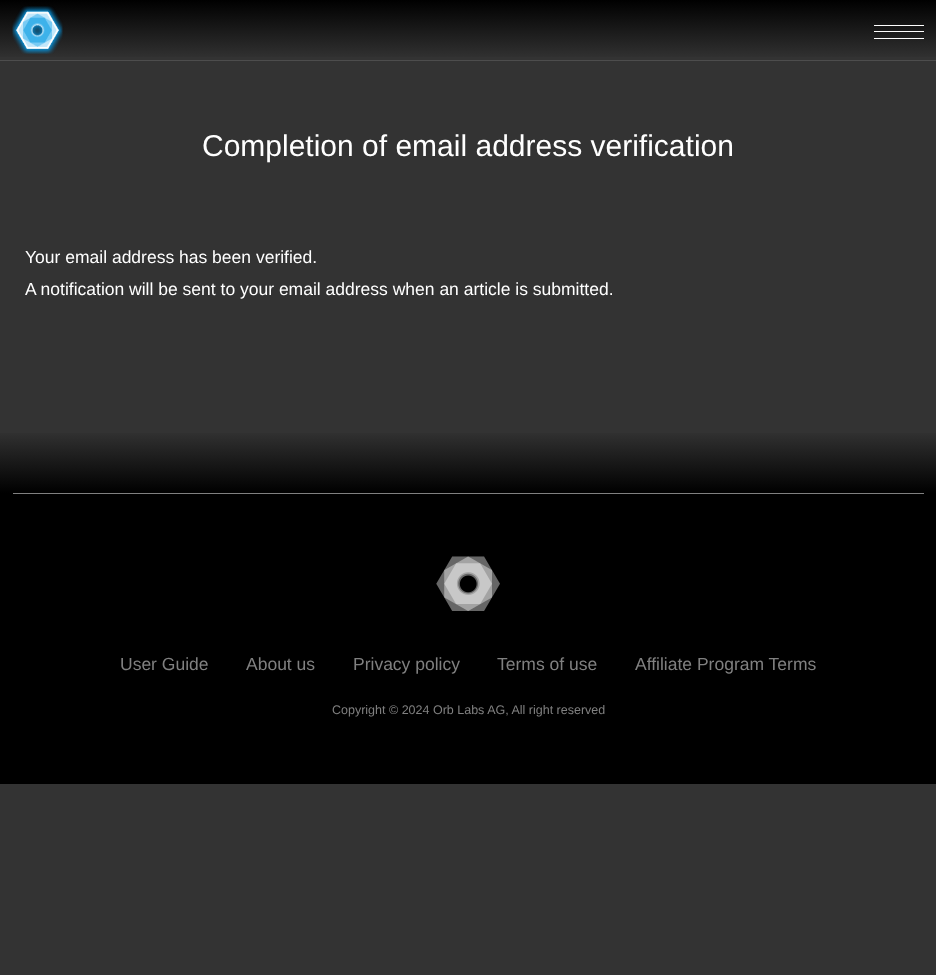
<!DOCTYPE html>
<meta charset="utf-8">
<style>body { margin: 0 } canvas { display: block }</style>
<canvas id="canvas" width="936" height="975"></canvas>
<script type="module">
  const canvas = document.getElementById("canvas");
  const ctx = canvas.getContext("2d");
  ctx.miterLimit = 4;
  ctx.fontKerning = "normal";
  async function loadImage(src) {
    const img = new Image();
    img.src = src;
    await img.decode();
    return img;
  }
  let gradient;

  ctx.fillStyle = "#333333";
  ctx.fillRect(0, 0, 936, 975);
  gradient = ctx.createLinearGradient(468, 60, 468, 0);
  gradient.addColorStop(0, "#333333");
  gradient.addColorStop(1, "#000000");
  ctx.fillStyle = gradient;
  ctx.fillRect(0, 0, 936, 57);
  ctx.fillStyle = "#4d4d4d";
  ctx.fillRect(0, 60, 936, 1);
  ctx.drawImage(await loadImage("img1.png"), 12, 6, 51, 48);
  ctx.fillStyle = "#ffffff";
  ctx.fillRect(874, 25, 50, 1);
  ctx.fillRect(874, 31, 50, 1);
  ctx.fillRect(874, 38, 50, 1);
  ctx.font = "30px Liberation Sans";
  ctx.fillText("Completion of email address verification", 202, 156);
  ctx.font = "17.5px Liberation Sans";
  ctx.fillText("Your email address has been verified.", 25, 263);
  ctx.fillText("A notification will be sent to your email address when an article is submitted.", 25, 295);
  ctx.fillStyle = "#000000";
  ctx.fillRect(0, 493, 936, 291);
  gradient = ctx.createLinearGradient(468, 493, 468, 430);
  gradient.addColorStop(0, "#000000");
  gradient.addColorStop(1, "#333333");
  ctx.fillStyle = gradient;
  ctx.fillRect(0, 433, 936, 60);
  ctx.fillStyle = "#808080";
  ctx.fillRect(13, 493, 911, 1);
  ctx.drawImage(await loadImage("img2.png"), 436, 556, 64, 55);
  ctx.fillText("User Guide", 120, 670);
  ctx.fillText("About us", 246, 670);
  ctx.fillText("Privacy policy", 353, 670);
  ctx.fillText("Terms of use", 497, 670);
  ctx.fillText("Affiliate Program Terms", 635, 670);
  ctx.font = "12.5px Liberation Sans";
  ctx.fillText("Copyright © 2024 Orb Labs AG, All right reserved", 332, 714);
</script>
